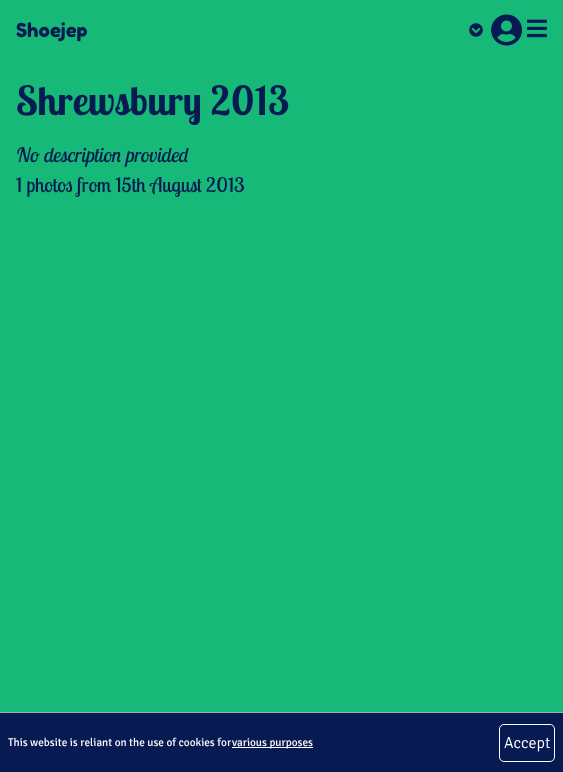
<!DOCTYPE html>
<meta charset="utf-8">
<style>body { margin: 0 } canvas { display: block }</style>
<canvas id="canvas" width="563" height="772"></canvas>
<script type="module">
  const canvas = document.getElementById("canvas");
  const ctx = canvas.getContext("2d");
  ctx.miterLimit = 4;
  ctx.fontKerning = "none";
  async function loadImage(src) {
    const img = new Image();
    img.src = src;
    await img.decode();
    return img;
  }

  ctx.fillStyle = "#17b978";
  ctx.fillRect(0, 0, 563, 772);
  ctx.font = "19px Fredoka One";
  ctx.fillStyle = "#071a52";
  ctx.fillText("Shoejep", 16, 37);
  ctx.drawImage(await loadImage("img1.png"), 469, 23, 14, 14);
  ctx.drawImage(await loadImage("img2.png"), 491, 14, 31, 32);
  ctx.drawImage(await loadImage("img3.png"), 527, 19, 20, 19);
  ctx.fillRect(0, 713, 563, 59);
  ctx.fillStyle = "#aaaaaa";
  ctx.fillRect(0, 712, 563, 1);
  ctx.font = "11.25px Signika";
  ctx.fillStyle = "#ffffff";
  ctx.fillText("This website is reliant on the use of cookies for", 8, 746);
  ctx.fillRect(232, 747, 81, 1);
  ctx.fillText("various purposes", 232, 746);
  ctx.beginPath();
  ctx.roundRect(499.5, 724.5, 55, 37, 4.5);
  ctx.strokeStyle = "#ffffff";
  ctx.stroke();
  ctx.font = "300 16px Signika";
  ctx.fillText("Accept", 504, 748);
  ctx.font = "bold 40px Lobster Two";
  ctx.fillStyle = "#071a52";
  ctx.fillText("Shrewsbury 2013", 16, 115);
  ctx.font = "italic 20px Lobster Two";
  ctx.fillText("No description provided", 16, 162);
  ctx.font = "20px Lobster Two";
  ctx.fillText("1 photos from 15th August 2013", 16, 192);
</script>
